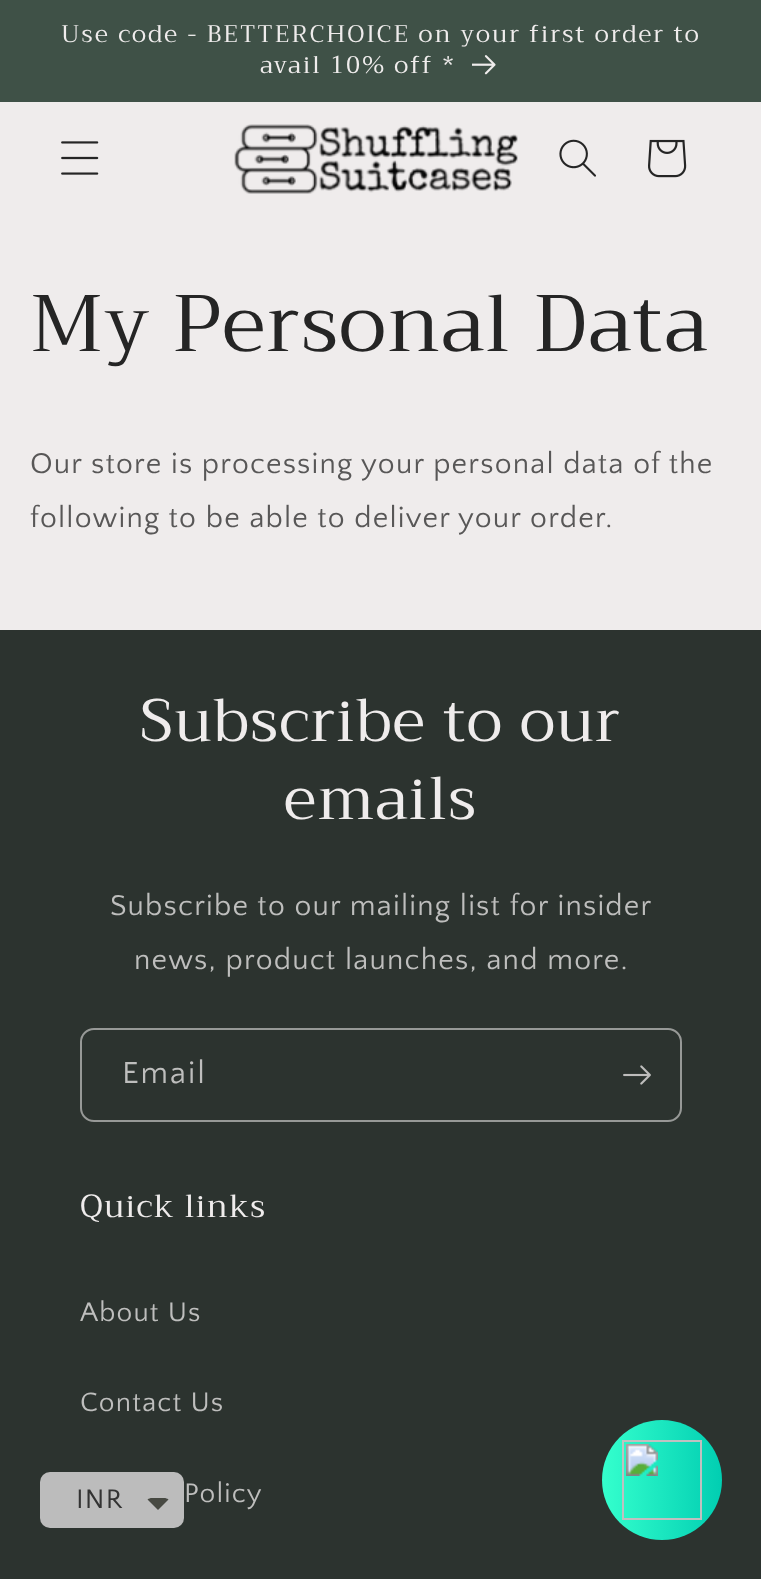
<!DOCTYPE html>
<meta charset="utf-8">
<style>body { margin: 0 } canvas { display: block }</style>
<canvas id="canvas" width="761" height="1579"></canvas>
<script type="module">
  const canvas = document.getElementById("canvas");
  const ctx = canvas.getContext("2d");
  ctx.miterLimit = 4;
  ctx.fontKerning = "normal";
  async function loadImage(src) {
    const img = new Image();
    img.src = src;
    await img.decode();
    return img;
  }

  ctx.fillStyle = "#efecec";
  ctx.fillRect(0, 0, 761, 1579);
  ctx.fillStyle = "#3f5147";
  ctx.fillRect(0, 0, 761, 102);
  ctx.letterSpacing = "2px";
  ctx.font = "24px Trirong";
  ctx.fillStyle = "#efecec";
  ctx.fillText("Use code - BETTERCHOICE on your first order to", 61, 42);
  ctx.fillText("avail 10% off *", 260, 73);
  ctx.drawImage(await loadImage("img1.png"), 472, 55, 24, 20);
  ctx.drawImage(await loadImage("img2.png"), 61, 141, 38, 34);
  ctx.drawImage(await loadImage("img3.png"), 234, 124, 284, 70);
  ctx.drawImage(await loadImage("img4.png"), 559, 139, 37, 38);
  ctx.drawImage(await loadImage("img5.png"), 648, 139, 39, 39);
  ctx.letterSpacing = "1.2px";
  ctx.font = "80px Trirong";
  ctx.fillStyle = "#252525";
  ctx.fillText("My Personal Data", 30, 351);
  ctx.font = "30px Quattrocento Sans";
  ctx.fillStyle = "#585757";
  ctx.fillText("Our store is processing your personal data of the", 30, 473);
  ctx.fillText("following to be able to deliver your order.", 30, 527);
  ctx.fillStyle = "#2c332f";
  ctx.fillRect(0, 630, 761, 949);
  ctx.font = "60px Trirong";
  ctx.fillStyle = "#efecec";
  ctx.fillText("Subscribe to our", 140, 741);
  ctx.fillText("emails", 284, 819);
  ctx.font = "30px Quattrocento Sans";
  ctx.fillStyle = "#bebebd";
  ctx.fillText("Subscribe to our mailing list for insider", 110, 915);
  ctx.fillText("news, product launches, and more.", 134, 969);
  ctx.beginPath();
  ctx.roundRect(81, 1029, 600, 92, 13);
  ctx.strokeStyle = "#979997";
  ctx.lineWidth = 2;
  ctx.stroke();
  ctx.letterSpacing = "2px";
  ctx.font = "32px Quattrocento Sans";
  ctx.fillText("Email", 122, 1083);
  ctx.drawImage(await loadImage("img6.png"), 623, 1065, 28, 20);
  ctx.letterSpacing = "1.2px";
  ctx.font = "32px Trirong";
  ctx.fillStyle = "#efecec";
  ctx.fillText("Quick links", 80, 1217);
  ctx.font = "28px Quattrocento Sans";
  ctx.fillStyle = "#bebebd";
  ctx.fillText("About Us", 80, 1321);
  ctx.fillText("Contact Us", 80, 1411);
  ctx.fillText("Policy", 184, 1502);
  ctx.drawImage(await loadImage("img7.png"), 602, 1420, 120, 120);
  ctx.fillStyle = "#bcbcbc";
  ctx.beginPath();
  ctx.roundRect(40, 1472, 144, 56, 10);
  ctx.fill();
  ctx.fillStyle = "#333333";
  ctx.fillText("INR", 76, 1508);
  ctx.fillStyle = "#474942";
  ctx.beginPath();
  ctx.moveTo(152, 1498);
  ctx.bezierCurveTo(150, 1498, 149, 1498.5, 147.5, 1499.5);
  ctx.lineTo(158, 1510);
  ctx.lineTo(168.5, 1499.5);
  ctx.bezierCurveTo(167, 1498.5, 166, 1498, 164, 1498);
  ctx.closePath();
  ctx.fill();
</script>
